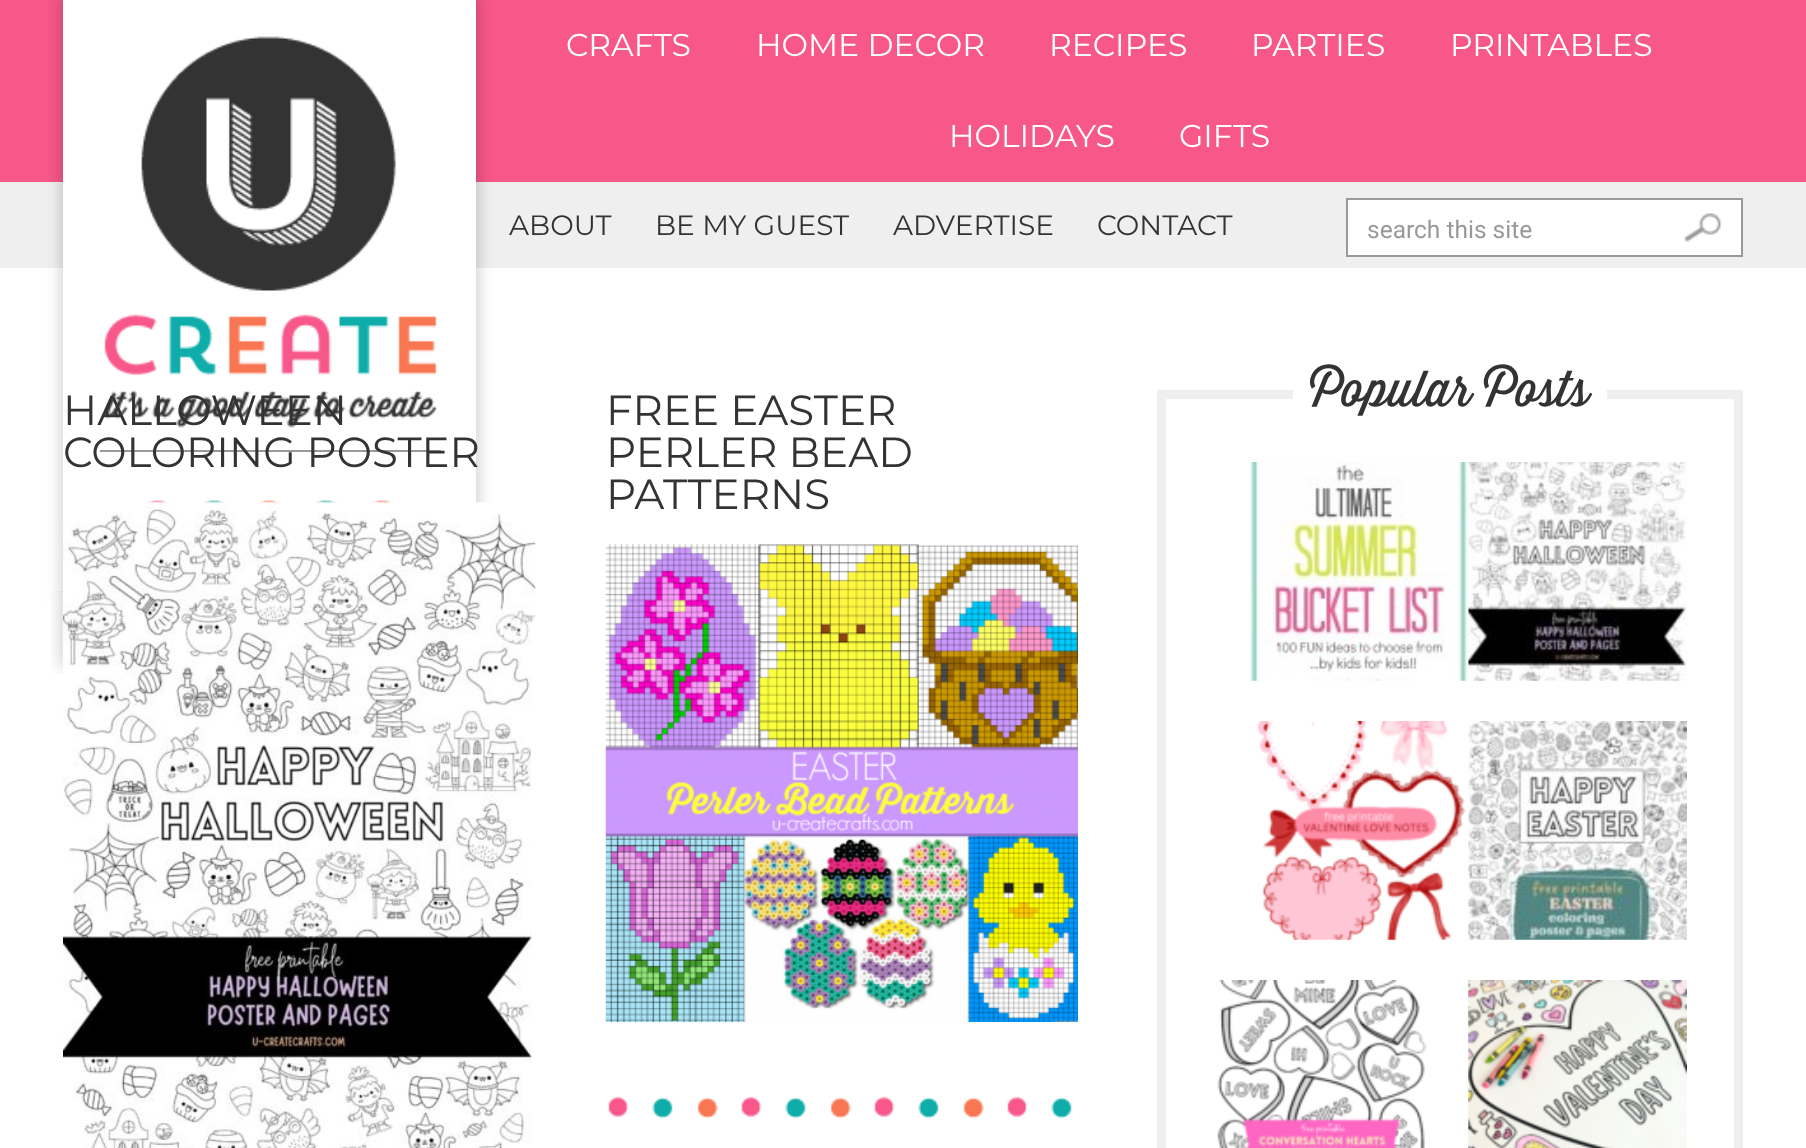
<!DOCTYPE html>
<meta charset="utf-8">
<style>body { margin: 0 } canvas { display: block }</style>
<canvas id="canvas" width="1806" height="1148"></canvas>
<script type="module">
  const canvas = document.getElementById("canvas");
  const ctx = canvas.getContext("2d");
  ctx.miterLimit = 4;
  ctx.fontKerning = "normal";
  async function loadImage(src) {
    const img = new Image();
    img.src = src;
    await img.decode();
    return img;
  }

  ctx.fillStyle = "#f75789";
  ctx.fillRect(0, 0, 1806, 1148);
  ctx.fillStyle = "#efefef";
  ctx.fillRect(0, 182, 1806, 86);
  ctx.fillStyle = "#ffffff";
  ctx.fillRect(0, 268, 1806, 880);
  ctx.fillStyle = "rgba(0, 0, 0, 0.16)";
  ctx.filter = "blur(7px)";
  ctx.beginPath();
  ctx.rect(60, -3, 420, 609);
  ctx.fill();
  ctx.filter = "none";
  ctx.fillStyle = "#ffffff";
  ctx.fillRect(63, 0, 413, 503);
  ctx.drawImage(await loadImage("img1.png"), 104, 36, 333, 392);
  ctx.fillStyle = "#999999";
  ctx.fillRect(100, 450, 341, 2);
  ctx.drawImage(await loadImage("img2.png"), 146, 500, 24, 3);
  ctx.drawImage(await loadImage("img3.png"), 202, 500, 24, 3);
  ctx.drawImage(await loadImage("img4.png"), 257, 500, 24, 3);
  ctx.drawImage(await loadImage("img5.png"), 314, 500, 24, 3);
  ctx.drawImage(await loadImage("img6.png"), 370, 500, 24, 3);
  ctx.fillStyle = "#ffffff";
  ctx.fillRect(51, 592, 12, 23);
  ctx.drawImage(await loadImage("img7.png"), 51, 591, 12, 84);
  ctx.font = "100 31.5px Montserrat";
  ctx.fillText("CRAFTS", 566, 56);
  ctx.fillText("HOME DECOR", 756, 56);
  ctx.fillText("RECIPES", 1049, 56);
  ctx.fillText("PARTIES", 1251, 56);
  ctx.fillText("PRINTABLES", 1450, 56);
  ctx.fillText("HOLIDAYS", 949, 147);
  ctx.fillText("GIFTS", 1179, 147);
  ctx.font = "100 28px Montserrat";
  ctx.fillStyle = "#333333";
  ctx.fillText("ABOUT", 509, 235);
  ctx.fillText("BE MY GUEST", 655, 235);
  ctx.fillText("ADVERTISE", 893, 235);
  ctx.fillText("CONTACT", 1097, 235);
  ctx.fillStyle = "#ffffff";
  ctx.beginPath();
  ctx.rect(1347, 199, 395, 57);
  ctx.fill();
  ctx.strokeStyle = "#999999";
  ctx.lineWidth = 2;
  ctx.stroke();
  ctx.font = "24.5px Roboto";
  ctx.fillStyle = "#999999";
  ctx.fillText("search this site", 1367, 238);
  ctx.drawImage(await loadImage("img8.png"), 1683, 213, 39, 29);
  ctx.font = "100 42px Montserrat";
  ctx.fillStyle = "#333333";
  ctx.fillText("HALLOWEEN", 63, 425);
  ctx.fillText("COLORING POSTER", 63, 467);
  ctx.drawImage(await loadImage("img9.png"), 63, 502, 473, 646);
  ctx.drawImage(await loadImage("img10.png"), 608, 1096, 464, 23);
  ctx.fillText("FREE EASTER", 606, 425);
  ctx.fillText("PERLER BEAD", 606, 467);
  ctx.fillText("PATTERNS", 606, 509);
  ctx.drawImage(await loadImage("img11.png"), 605, 544, 473, 478);
  ctx.strokeStyle = "#efefef";
  ctx.lineWidth = 9;
  ctx.strokeRect(1161.5, 394.5, 577, 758);
  ctx.fillStyle = "#ffffff";
  ctx.fillRect(1293, 390, 314, 9);
  ctx.font = "49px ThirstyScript";
  ctx.fillStyle = "#333333";
  ctx.fillText("Popular Posts", 1310, 406);
  ctx.drawImage(await loadImage("img13.png"), 1468, 462, 219, 219);
  ctx.drawImage(await loadImage("img12.png"), 1249, 462, 220, 219);
  ctx.drawImage(await loadImage("img15.png"), 1468, 721, 219, 219);
  ctx.drawImage(await loadImage("img14.png"), 1253, 721, 216, 219);
  ctx.drawImage(await loadImage("img16.png"), 1217, 980, 210, 168);
  ctx.drawImage(await loadImage("img17.png"), 1468, 980, 219, 168);
</script>
